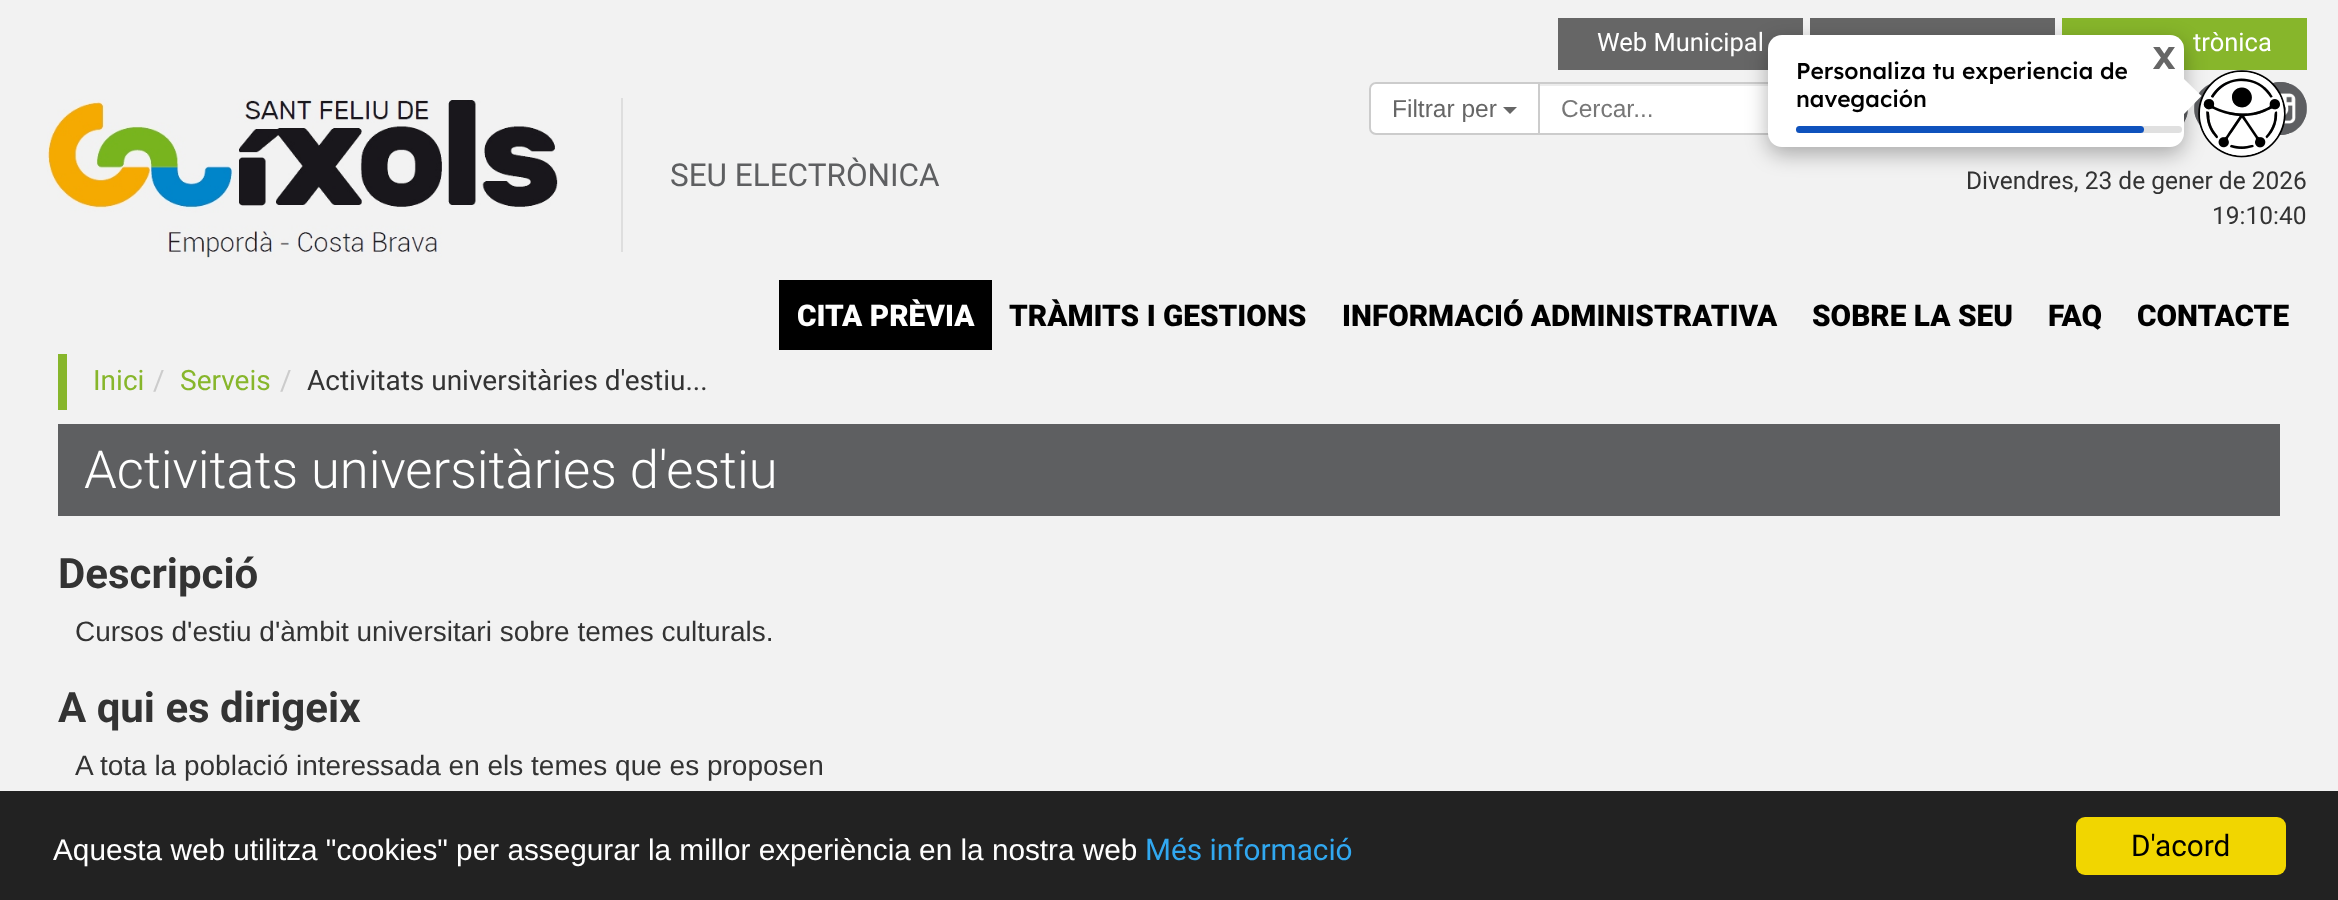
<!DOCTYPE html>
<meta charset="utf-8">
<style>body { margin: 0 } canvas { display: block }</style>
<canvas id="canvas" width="2338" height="900"></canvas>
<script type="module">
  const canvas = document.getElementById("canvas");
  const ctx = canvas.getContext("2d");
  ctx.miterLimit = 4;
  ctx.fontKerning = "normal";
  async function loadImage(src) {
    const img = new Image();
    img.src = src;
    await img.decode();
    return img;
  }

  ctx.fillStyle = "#f2f2f2";
  ctx.fillRect(0, 0, 2338, 900);
  ctx.fillStyle = "#666666";
  ctx.fillRect(1810, 18, 245, 17);
  ctx.fillRect(1558, 18, 245, 52);
  ctx.font = "25.5px Roboto";
  ctx.fillStyle = "#ffffff";
  ctx.fillText("Web Municipal", 1597, 51);
  ctx.fillStyle = "#87b62b";
  ctx.fillRect(2062, 18, 245, 52);
  ctx.fillStyle = "#ffffff";
  ctx.fillText("trònica", 2193, 51);
  ctx.drawImage(await loadImage("img1.png"), 47, 99, 511, 159);
  ctx.fillStyle = "#dedede";
  ctx.fillRect(621, 98, 2, 154);
  ctx.font = "31.5px Roboto";
  ctx.fillStyle = "#5e5f61";
  ctx.fillText("SEU ELECTRÒNICA", 670, 186);
  ctx.fillStyle = "#ffffff";
  ctx.beginPath();
  ctx.roundRect(1370, 83, 169, 51, [6, 0, 0, 6]);
  ctx.fill();
  ctx.strokeStyle = "#cccccc";
  ctx.lineWidth = 2;
  ctx.stroke();
  ctx.font = "24.5px Liberation Sans";
  ctx.fillStyle = "#666666";
  ctx.fillText("Filtrar per", 1392, 117);
  ctx.beginPath();
  ctx.moveTo(1503, 107);
  ctx.lineTo(1517, 107);
  ctx.lineTo(1510, 114);
  ctx.closePath();
  ctx.fill();
  ctx.fillStyle = "#ffffff";
  ctx.fillRect(1540, 86, 228, 47);
  ctx.fillStyle = "#ececec";
  ctx.fillRect(1540, 84, 228, 2);
  ctx.strokeRect(1539, 83, 317, 51);
  ctx.fillStyle = "#777777";
  ctx.fillText("Cercar...", 1561, 117);
  ctx.drawImage(await loadImage("img2.png"), 2184, 110, 4, 13);
  ctx.drawImage(await loadImage("img3.png"), 2184, 110, 4, 13);
  ctx.drawImage(await loadImage("img4.png"), 2194, 82, 53, 53);
  ctx.drawImage(await loadImage("img5.png"), 2194, 82, 53, 53);
  ctx.drawImage(await loadImage("img6.png"), 2254, 82, 53, 53);
  ctx.drawImage(await loadImage("img7.png"), 2254, 82, 53, 53);
  ctx.font = "24.5px Roboto";
  ctx.fillStyle = "#333333";
  ctx.fillText("Divendres, 23 de gener de 2026", 1966, 189);
  ctx.fillText("19:10:40", 2212, 224);
  ctx.fillStyle = "#000000";
  ctx.fillRect(779, 280, 213, 70);
  ctx.font = "900 29.75px Roboto";
  ctx.fillStyle = "#ffffff";
  ctx.fillText("CITA PRÈVIA", 797, 326);
  ctx.fillStyle = "#000000";
  ctx.fillText("TRÀMITS I GESTIONS", 1009, 326);
  ctx.fillText("INFORMACIÓ ADMINISTRATIVA", 1342, 326);
  ctx.fillText("SOBRE LA SEU", 1812, 326);
  ctx.fillText("FAQ", 2048, 326);
  ctx.fillText("CONTACTE", 2137, 326);
  ctx.fillStyle = "#87b62b";
  ctx.fillRect(58, 354, 9, 56);
  ctx.font = "28px Roboto";
  ctx.fillText("Inici", 93, 390);
  ctx.fillStyle = "#cccccc";
  ctx.fillText("/", 153, 390);
  ctx.fillStyle = "#87b62b";
  ctx.fillText("Serveis", 180, 390);
  ctx.fillStyle = "#cccccc";
  ctx.fillText("/", 280, 390);
  ctx.fillStyle = "#333333";
  ctx.fillText("Activitats universitàries d'estiu...", 307, 390);
  ctx.fillStyle = "#5e5f61";
  ctx.fillRect(58, 424, 2222, 92);
  ctx.font = "300 52.5px Roboto";
  ctx.fillStyle = "#ffffff";
  ctx.fillText("Activitats universitàries d'estiu", 84, 488);
  ctx.font = "bold 42px Roboto";
  ctx.fillStyle = "#333333";
  ctx.fillText("Descripció", 58, 588);
  ctx.font = "28px Liberation Sans";
  ctx.fillText("Cursos d'estiu d'àmbit universitari sobre temes culturals.", 75, 641);
  ctx.font = "bold 42px Roboto";
  ctx.fillText("A qui es dirigeix", 58, 722);
  ctx.font = "28px Liberation Sans";
  ctx.fillText("A tota la població interessada en els temes que es proposen", 75, 775);
  ctx.fillStyle = "rgba(0, 0, 0, 0.3)";
  ctx.filter = "blur(10.5px)";
  ctx.beginPath();
  ctx.roundRect(1768, 42, 416, 112, 14);
  ctx.fill();
  ctx.filter = "none";
  ctx.fillStyle = "#ffffff";
  ctx.beginPath();
  ctx.roundRect(1768, 35, 416, 112, 14);
  ctx.fill();
  ctx.font = "bold 31.5px Lexend";
  ctx.fillStyle = "#666666";
  ctx.fillText("X", 2153, 69);
  ctx.font = "500 22.75px Lexend";
  ctx.fillStyle = "#000000";
  ctx.fillText("Personaliza tu experiencia de", 1796, 79);
  ctx.fillText("navegación", 1796, 107);
  ctx.fillStyle = "#ffffff";
  ctx.beginPath();
  ctx.moveTo(2184, 114);
  ctx.lineTo(2184, 79);
  ctx.lineTo(2201.5, 96);
  ctx.closePath();
  ctx.fill();
  ctx.fillStyle = "#e0e0e0";
  ctx.beginPath();
  ctx.roundRect(1796, 126, 386, 7, 3.5);
  ctx.fill();
  ctx.fillStyle = "#0f52bd";
  ctx.beginPath();
  ctx.roundRect(1796, 126, 348, 7, 3.5);
  ctx.fill();
  ctx.drawImage(await loadImage("img8.png"), 2198, 70, 88, 88);
  ctx.fillStyle = "#222222";
  ctx.fillRect(0, 791, 2338, 109);
  ctx.font = "29.75px Liberation Sans";
  ctx.fillStyle = "#ffffff";
  ctx.fillText("Aquesta web utilitza \"cookies\" per assegurar la millor experiència en la nostra web", 53, 860);
  ctx.font = "29.75px Roboto";
  ctx.fillStyle = "#31a8f0";
  ctx.fillText("Més informació", 1145, 860);
  ctx.fillStyle = "#f1d600";
  ctx.beginPath();
  ctx.roundRect(2076, 817, 210, 58, 9);
  ctx.fill();
  ctx.fillStyle = "#000000";
  ctx.fillText("D'acord", 2131, 856);
</script>
